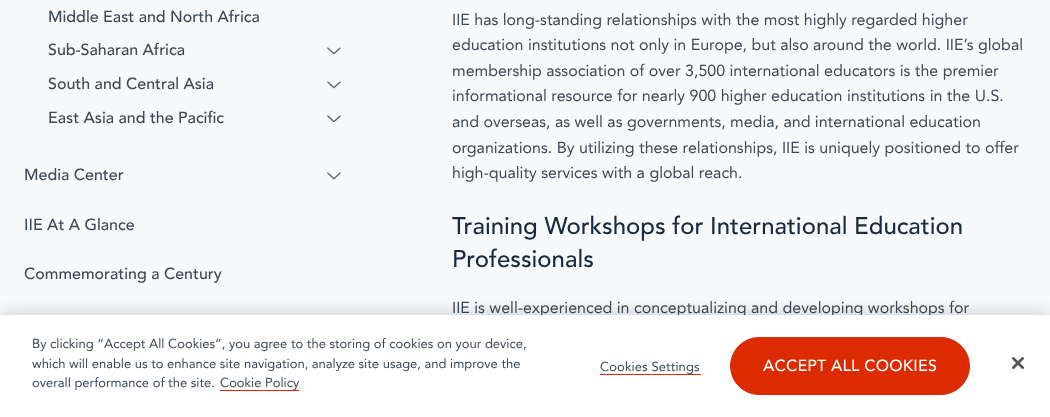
<!DOCTYPE html>
<meta charset="utf-8">
<style>body { margin: 0 } canvas { display: block }</style>
<canvas id="canvas" width="1050" height="417"></canvas>
<script type="module">
  const canvas = document.getElementById("canvas");
  const ctx = canvas.getContext("2d");
  ctx.miterLimit = 4;
  ctx.fontKerning = "normal";
  async function loadImage(src) {
    const img = new Image();
    img.src = src;
    await img.decode();
    return img;
  }

  ctx.fillStyle = "#f7fafd";
  ctx.fillRect(0, 0, 1050, 417);
  ctx.font = "500 16px Avenir";
  ctx.fillStyle = "#3d4955";
  ctx.fillText("Middle East and North Africa", 48, 22);
  ctx.fillText("Sub-Saharan Africa", 48, 55);
  ctx.drawImage(await loadImage("img1.png"), 327, 47, 14, 8);
  ctx.fillText("South and Central Asia", 48, 89);
  ctx.drawImage(await loadImage("img1.png"), 327, 81, 14, 8);
  ctx.fillText("East Asia and the Pacific", 48, 123);
  ctx.drawImage(await loadImage("img2.png"), 327, 115, 14, 7);
  ctx.fillText("Media Center", 24, 180);
  ctx.drawImage(await loadImage("img1.png"), 327, 172, 14, 8);
  ctx.fillText("IIE At A Glance", 24, 230);
  ctx.fillText("Commemorating a Century", 24, 279);
  ctx.font = "16px Avenir";
  ctx.fillText("IIE has long-standing relationships with the most highly regarded higher", 452, 25);
  ctx.fillText("education institutions not only in Europe, but also around the world. IIE’s global", 452, 50);
  ctx.fillText("membership association of over 3,500 international educators is the premier", 452, 76);
  ctx.fillText("informational resource for nearly 900 higher education institutions in the U.S.", 452, 101);
  ctx.fillText("and overseas, as well as governments, media, and international education", 452, 127);
  ctx.fillText("organizations. By utilizing these relationships, IIE is uniquely positioned to offer", 452, 153);
  ctx.fillText("high-quality services with a global reach.", 452, 178);
  ctx.font = "500 24px Avenir";
  ctx.fillStyle = "#1a2a3a";
  ctx.fillText("Training Workshops for International Education", 452, 234);
  ctx.fillText("Professionals", 452, 267);
  ctx.font = "16px Avenir";
  ctx.fillStyle = "#3d4955";
  ctx.fillText("IIE is well-experienced in conceptualizing and developing workshops for", 452, 313);
  ctx.fillStyle = "rgba(0, 0, 0, 0.2)";
  ctx.filter = "blur(9px)";
  ctx.beginPath();
  ctx.rect(0, 315, 1050, 102);
  ctx.fill();
  ctx.filter = "none";
  ctx.fillStyle = "#ffffff";
  ctx.fillRect(0, 315, 1050, 102);
  ctx.font = "13px Avenir";
  ctx.fillStyle = "#3d4955";
  ctx.fillText("By clicking “Accept All Cookies”, you agree to the storing of cookies on your device,", 32, 348);
  ctx.fillText("which will enable us to enhance site navigation, analyze site usage, and improve the", 32, 368);
  ctx.fillText("overall performance of the site.", 32, 387);
  ctx.fillStyle = "#dc2b00";
  ctx.fillRect(220, 390, 79, 1);
  ctx.fillStyle = "#3d4955";
  ctx.fillText("Cookie Policy", 220, 387);
  ctx.fillStyle = "#dc2b00";
  ctx.fillRect(600, 374, 101, 1);
  ctx.letterSpacing = "0.1px";
  ctx.fillStyle = "#3d4955";
  ctx.fillText("Cookies Settings", 600, 371);
  ctx.fillStyle = "#dc2b00";
  ctx.beginPath();
  ctx.roundRect(730.5, 337.5, 239, 57, 28.5);
  ctx.fill();
  ctx.strokeStyle = "#dc2b00";
  ctx.stroke();
  ctx.letterSpacing = "0.2px";
  ctx.font = "500 16px Avenir";
  ctx.fillStyle = "#ffffff";
  ctx.fillText("ACCEPT ALL COOKIES", 763, 371);
  ctx.drawImage(await loadImage("img3.png"), 1012, 357, 12, 12);
</script>
